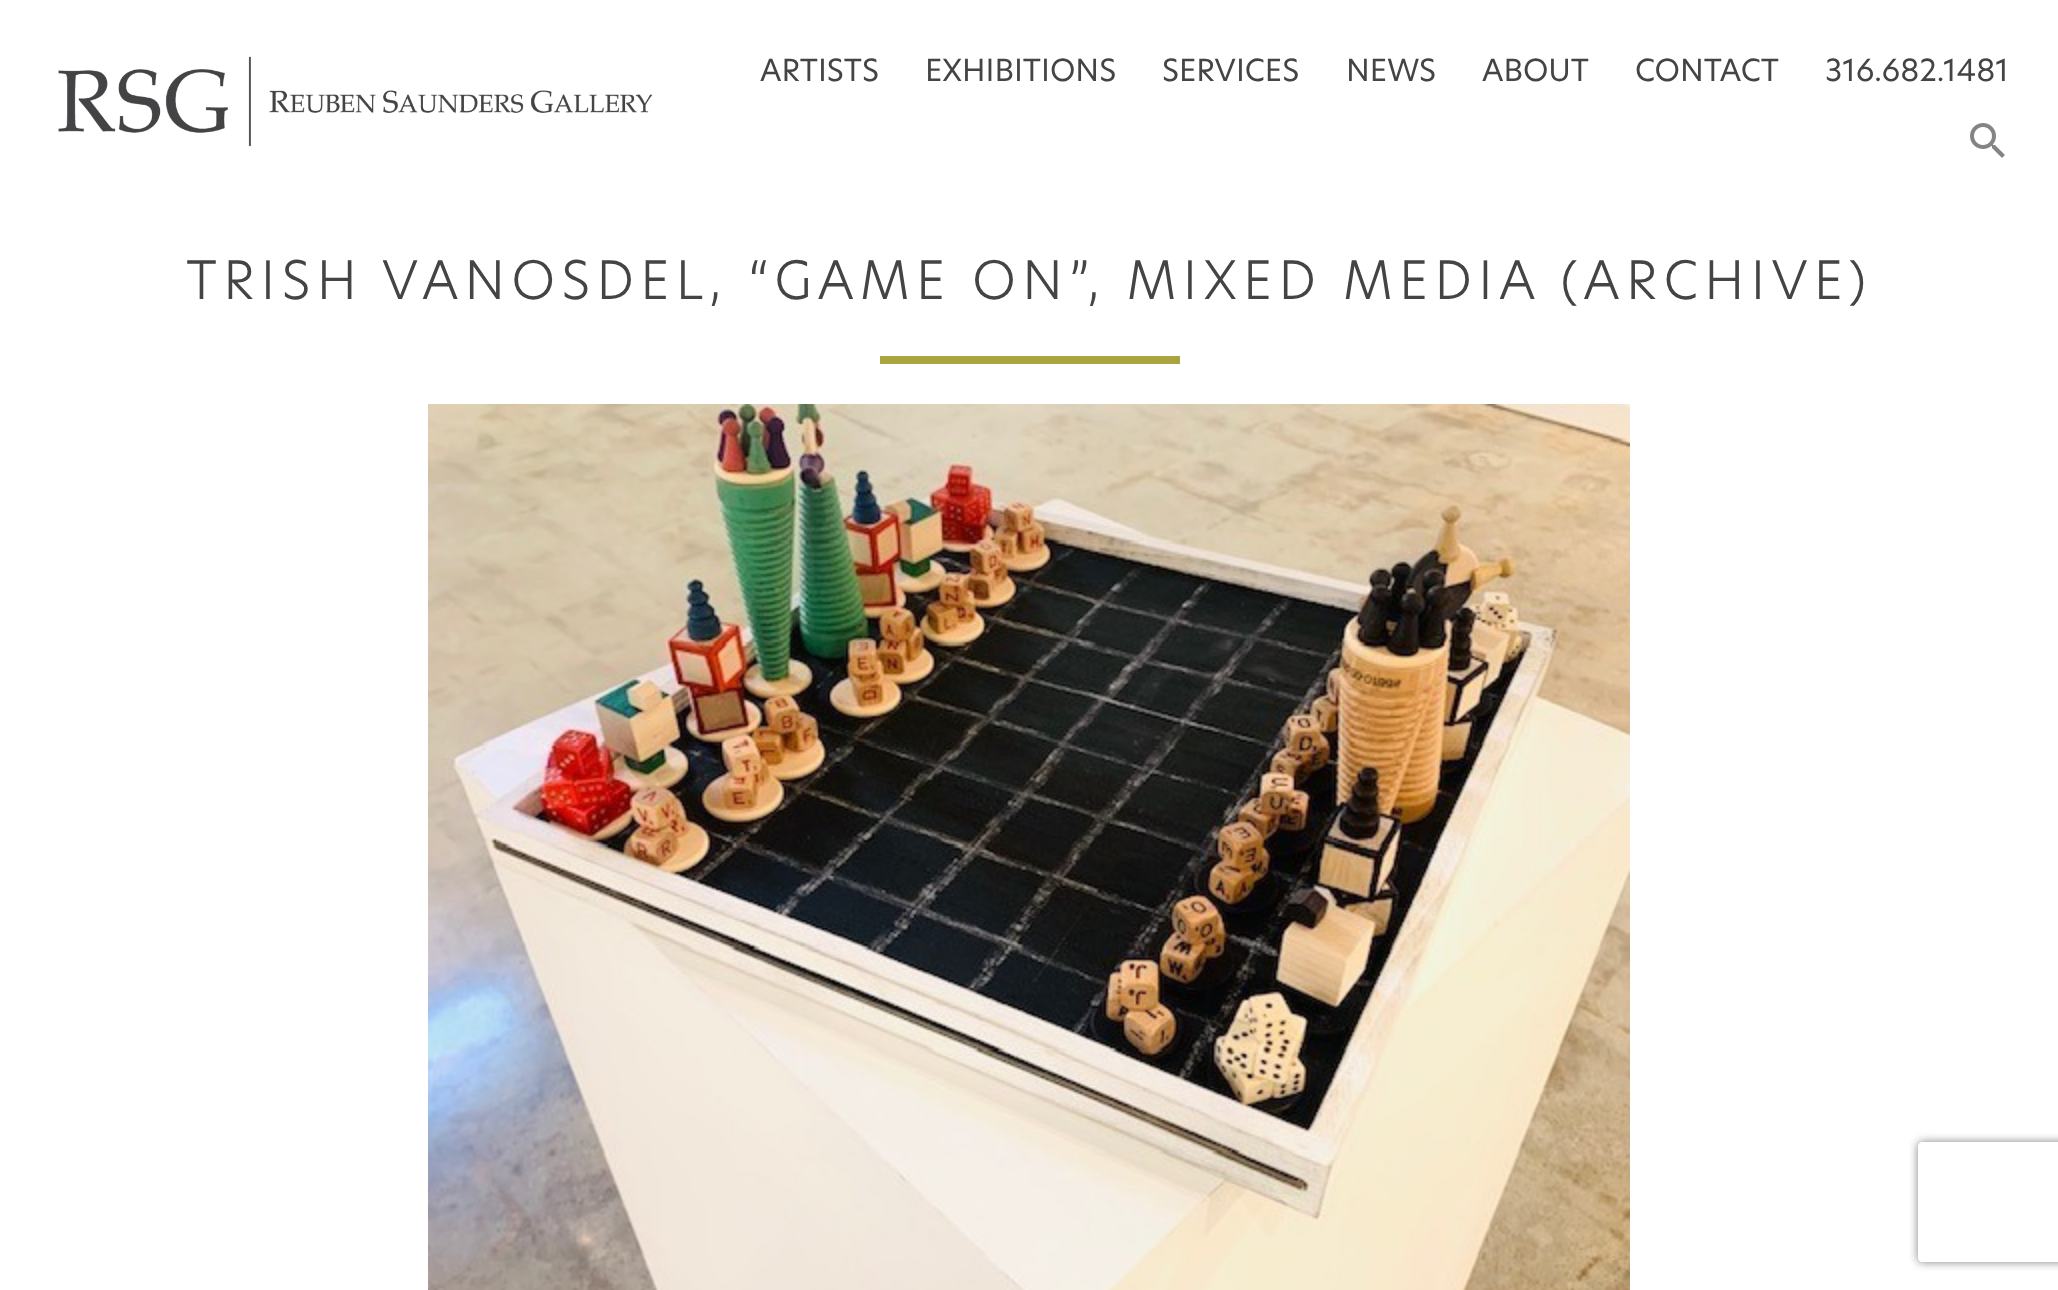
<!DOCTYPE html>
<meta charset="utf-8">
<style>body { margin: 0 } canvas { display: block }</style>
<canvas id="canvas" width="2058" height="1290"></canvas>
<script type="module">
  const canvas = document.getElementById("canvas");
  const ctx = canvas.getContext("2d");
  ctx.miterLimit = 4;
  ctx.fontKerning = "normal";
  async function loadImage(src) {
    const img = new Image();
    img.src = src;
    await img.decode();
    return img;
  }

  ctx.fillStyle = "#ffffff";
  ctx.fillRect(0, 0, 2058, 1290);
  ctx.drawImage(await loadImage("img1.png"), 58, 56, 595, 91);
  ctx.font = "30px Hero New";
  ctx.fillStyle = "#444345";
  ctx.fillText("ARTISTS", 760, 81);
  ctx.fillText("EXHIBITIONS", 925, 81);
  ctx.fillText("SERVICES", 1162, 81);
  ctx.fillText("NEWS", 1346, 81);
  ctx.fillText("ABOUT", 1482, 81);
  ctx.fillText("CONTACT", 1635, 81);
  ctx.fillText("316.682.1481", 1825, 81);
  ctx.drawImage(await loadImage("img2.png"), 1970, 123, 35, 35);
  ctx.letterSpacing = "6px";
  ctx.font = "300 52px Hero New";
  ctx.fillText("TRISH VANOSDEL, “GAME ON”, MIXED MEDIA (ARCHIVE)", 186, 299);
  ctx.fillStyle = "#a9a340";
  ctx.fillRect(880, 356, 300, 8);
  ctx.drawImage(await loadImage("img3.png"), 428, 404, 1202, 886);
  ctx.save();
  ctx.beginPath();
  ctx.moveTo(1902, 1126);
  ctx.lineTo(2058, 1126);
  ctx.lineTo(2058, 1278);
  ctx.lineTo(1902, 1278);
  ctx.closePath();
  ctx.moveTo(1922, 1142);
  ctx.lineTo(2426, 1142);
  ctx.bezierCurveTo(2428, 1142, 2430, 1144, 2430, 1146);
  ctx.lineTo(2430, 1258);
  ctx.bezierCurveTo(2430, 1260, 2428, 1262, 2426, 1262);
  ctx.lineTo(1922, 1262);
  ctx.bezierCurveTo(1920, 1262, 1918, 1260, 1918, 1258);
  ctx.lineTo(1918, 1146);
  ctx.bezierCurveTo(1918, 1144, 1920, 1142, 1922, 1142);
  ctx.closePath();
  ctx.clip("evenodd");
  ctx.fillStyle = "#808080";
  ctx.filter = "blur(5px)";
  ctx.beginPath();
  ctx.roundRect(1918, 1142, 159, 120, 4);
  ctx.fill();
  ctx.filter = "none";
  ctx.restore();
</script>
